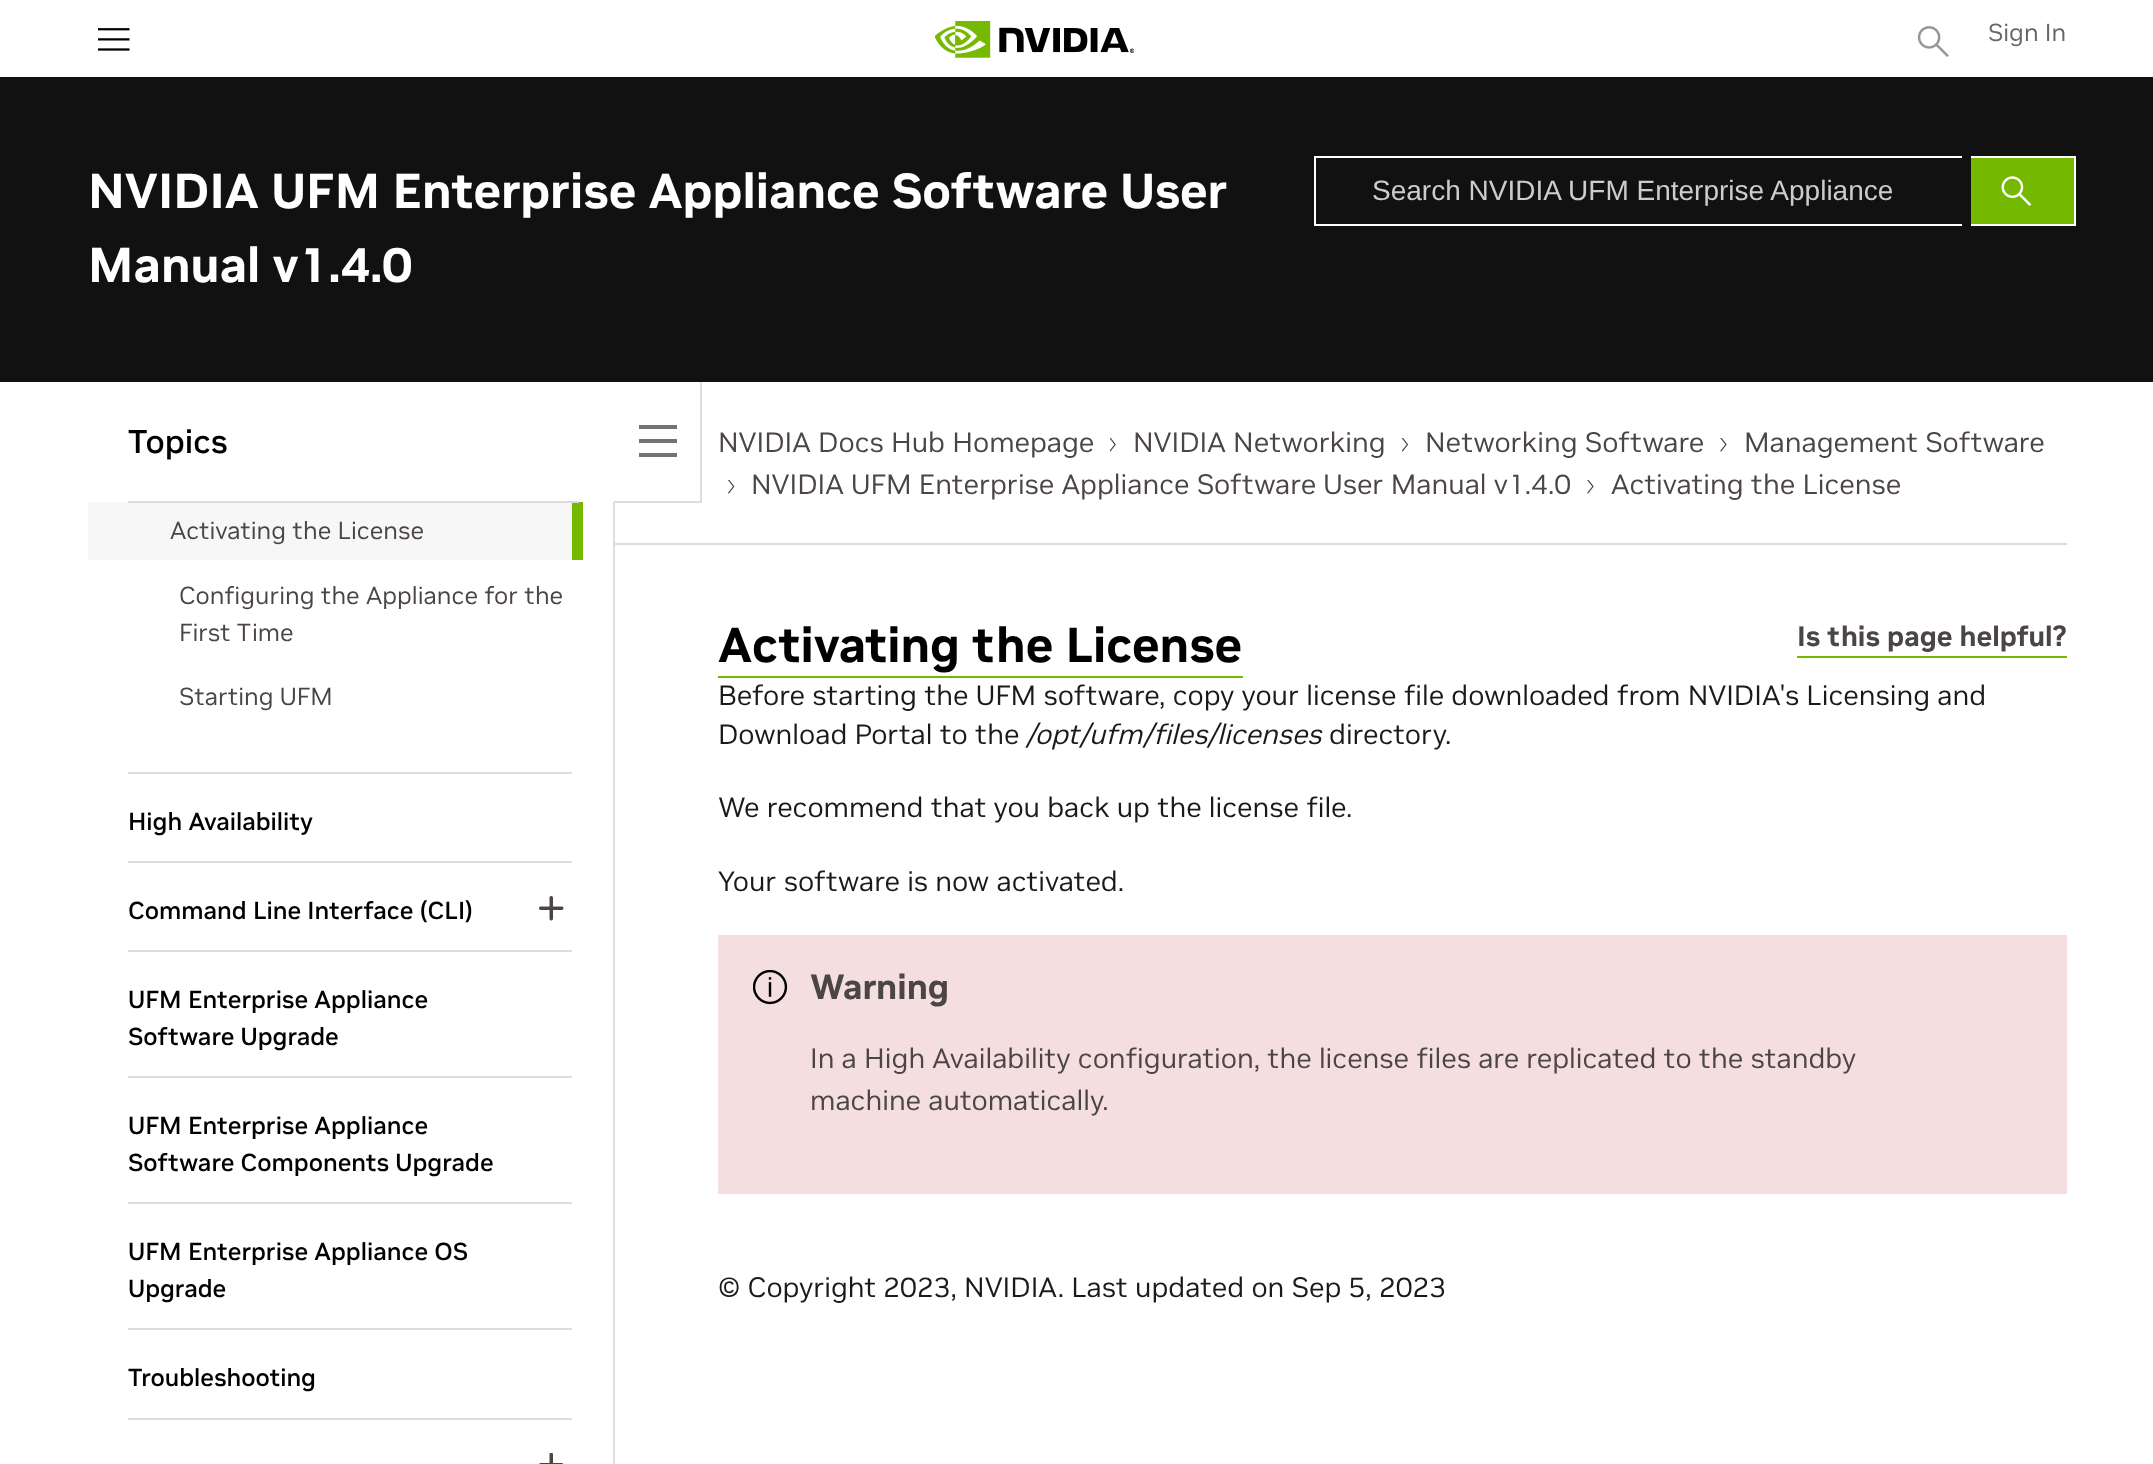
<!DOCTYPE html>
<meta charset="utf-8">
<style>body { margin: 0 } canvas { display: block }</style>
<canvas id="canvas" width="2153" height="1464"></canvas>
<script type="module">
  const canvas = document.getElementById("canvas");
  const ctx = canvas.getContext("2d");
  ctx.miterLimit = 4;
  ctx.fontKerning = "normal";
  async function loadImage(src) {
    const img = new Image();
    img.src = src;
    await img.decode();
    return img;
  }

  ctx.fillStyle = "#ffffff";
  ctx.fillRect(0, 0, 2153, 1464);
  ctx.drawImage(await loadImage("img1.png"), 98, 28, 32, 23);
  ctx.drawImage(await loadImage("img2.png"), 935, 21, 199, 37);
  ctx.drawImage(await loadImage("img3.png"), 1917, 26, 32, 31);
  ctx.font = "24.5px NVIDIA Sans";
  ctx.fillStyle = "#666666";
  ctx.fillText("Sign In", 1988, 41);
  ctx.fillStyle = "#111111";
  ctx.fillRect(0, 77, 2153, 305);
  ctx.font = "bold 49px NVIDIA Sans";
  ctx.fillStyle = "#ffffff";
  ctx.fillText("NVIDIA UFM Enterprise Appliance Software User", 88, 208);
  ctx.fillText("Manual v1.4.0", 88, 282);
  ctx.fillRect(1314, 156, 648, 2);
  ctx.fillRect(1314, 224, 648, 2);
  ctx.fillRect(1314, 156, 2, 70);
  ctx.font = "28px Liberation Sans";
  ctx.fillStyle = "#cccccc";
  ctx.fillText("Search NVIDIA UFM Enterprise Appliance", 1372, 200);
  ctx.fillStyle = "#74b900";
  ctx.fillRect(1971, 158, 103, 66);
  ctx.fillStyle = "#ffffff";
  ctx.fillRect(1971, 156, 105, 2);
  ctx.fillRect(2074, 156, 2, 70);
  ctx.fillRect(1971, 224, 105, 2);
  ctx.drawImage(await loadImage("img4.png"), 2001, 176, 31, 30);
  ctx.font = "500 33px NVIDIA Sans";
  ctx.fillStyle = "#000000";
  ctx.fillText("Topics", 128, 453);
  ctx.fillStyle = "#f7f7f7";
  ctx.fillRect(88, 502, 484, 58);
  ctx.fillStyle = "#74b900";
  ctx.fillRect(572, 502, 11, 58);
  ctx.fillStyle = "#dddddd";
  ctx.fillRect(128, 501, 451, 2);
  ctx.fillRect(700, 382, 2, 120);
  ctx.fillRect(613, 502, 2, 962);
  ctx.fillRect(614, 501, 88, 2);
  ctx.fillStyle = "#787171";
  ctx.fillRect(639, 425, 38, 4);
  ctx.fillRect(639, 439, 38, 4);
  ctx.fillRect(639, 453, 38, 4);
  ctx.font = "24.5px NVIDIA Sans";
  ctx.fillStyle = "#4b4545";
  ctx.fillText("Activating the License", 170, 539);
  ctx.fillText("Configuring the Appliance for the", 179, 604);
  ctx.fillText("First Time", 179, 641);
  ctx.fillText("Starting UFM", 179, 705);
  ctx.fillStyle = "#dddddd";
  ctx.fillRect(128, 772, 444, 2);
  ctx.font = "500 24.5px NVIDIA Sans";
  ctx.fillStyle = "#000000";
  ctx.fillText("High Availability", 128, 830);
  ctx.fillStyle = "#dddddd";
  ctx.fillRect(128, 861, 444, 2);
  ctx.fillStyle = "#000000";
  ctx.fillText("Command Line Interface (CLI)", 128, 919);
  ctx.drawImage(await loadImage("img5.png"), 539, 896, 25, 25);
  ctx.fillStyle = "#dddddd";
  ctx.fillRect(128, 950, 444, 2);
  ctx.fillStyle = "#000000";
  ctx.fillText("UFM Enterprise Appliance", 128, 1008);
  ctx.fillText("Software Upgrade", 128, 1045);
  ctx.fillStyle = "#dddddd";
  ctx.fillRect(128, 1076, 444, 2);
  ctx.fillStyle = "#000000";
  ctx.fillText("UFM Enterprise Appliance", 128, 1134);
  ctx.fillText("Software Components Upgrade", 128, 1171);
  ctx.fillStyle = "#dddddd";
  ctx.fillRect(128, 1202, 444, 2);
  ctx.fillStyle = "#000000";
  ctx.fillText("UFM Enterprise Appliance OS", 128, 1260);
  ctx.fillText("Upgrade", 128, 1297);
  ctx.fillStyle = "#dddddd";
  ctx.fillRect(128, 1328, 444, 2);
  ctx.fillStyle = "#000000";
  ctx.fillText("Troubleshooting", 128, 1386);
  ctx.fillStyle = "#dddddd";
  ctx.fillRect(128, 1418, 444, 2);
  ctx.drawImage(await loadImage("img6.png"), 539, 1453, 25, 11);
  ctx.font = "28px NVIDIA Sans";
  ctx.fillStyle = "#4b4545";
  ctx.fillText("NVIDIA Docs Hub Homepage", 718, 452);
  ctx.drawImage(await loadImage("img7.png"), 1110, 438, 6, 14);
  ctx.fillText("NVIDIA Networking", 1133, 452);
  ctx.drawImage(await loadImage("img8.png"), 1402, 438, 6, 14);
  ctx.fillText("Networking Software", 1425, 452);
  ctx.drawImage(await loadImage("img9.png"), 1720, 438, 7, 14);
  ctx.fillText("Management Software", 1744, 452);
  ctx.drawImage(await loadImage("img10.png"), 728, 480, 7, 14);
  ctx.fillText("NVIDIA UFM Enterprise Appliance Software User Manual v1.4.0", 751, 494);
  ctx.drawImage(await loadImage("img9.png"), 1587, 480, 7, 14);
  ctx.fillText("Activating the License", 1611, 494);
  ctx.fillStyle = "#dddddd";
  ctx.fillRect(615, 543, 1452, 2);
  ctx.font = "bold 49px NVIDIA Sans";
  ctx.fillStyle = "#000000";
  ctx.fillText("Activating the License", 718, 662);
  ctx.fillStyle = "#74b900";
  ctx.fillRect(718, 676, 525, 2);
  ctx.fillRect(1797, 656, 270, 2);
  ctx.font = "bold 28px NVIDIA Sans";
  ctx.fillStyle = "#4b4545";
  ctx.fillText("Is this page helpful?", 1797, 646);
  ctx.font = "28px NVIDIA Sans";
  ctx.fillStyle = "#1a1a1a";
  ctx.fillText("Before starting the UFM software, copy your license file downloaded from NVIDIA's Licensing and", 718, 705);
  ctx.fillText("Download Portal to the", 718, 744);
  ctx.font = "italic 28px NVIDIA Sans";
  ctx.fillText("/opt/ufm/files/licenses", 1026, 744);
  ctx.font = "28px NVIDIA Sans";
  ctx.fillText("directory.", 1329, 744);
  ctx.fillText("We recommend that you back up the license file.", 718, 817);
  ctx.fillText("Your software is now activated.", 718, 891);
  ctx.fillStyle = "#f4dedf";
  ctx.fillRect(718, 935, 1349, 259);
  ctx.drawImage(await loadImage("img11.png"), 753, 970, 35, 35);
  ctx.font = "bold 35px NVIDIA Sans";
  ctx.fillStyle = "#4b4545";
  ctx.fillText("Warning", 810, 999);
  ctx.font = "28px NVIDIA Sans";
  ctx.fillText("In a High Availability configuration, the license files are replicated to the standby", 810, 1068);
  ctx.fillText("machine automatically.", 810, 1110);
  ctx.fillStyle = "#1a1a1a";
  ctx.fillText("© Copyright 2023, NVIDIA. Last updated on Sep 5, 2023", 718, 1297);
</script>
